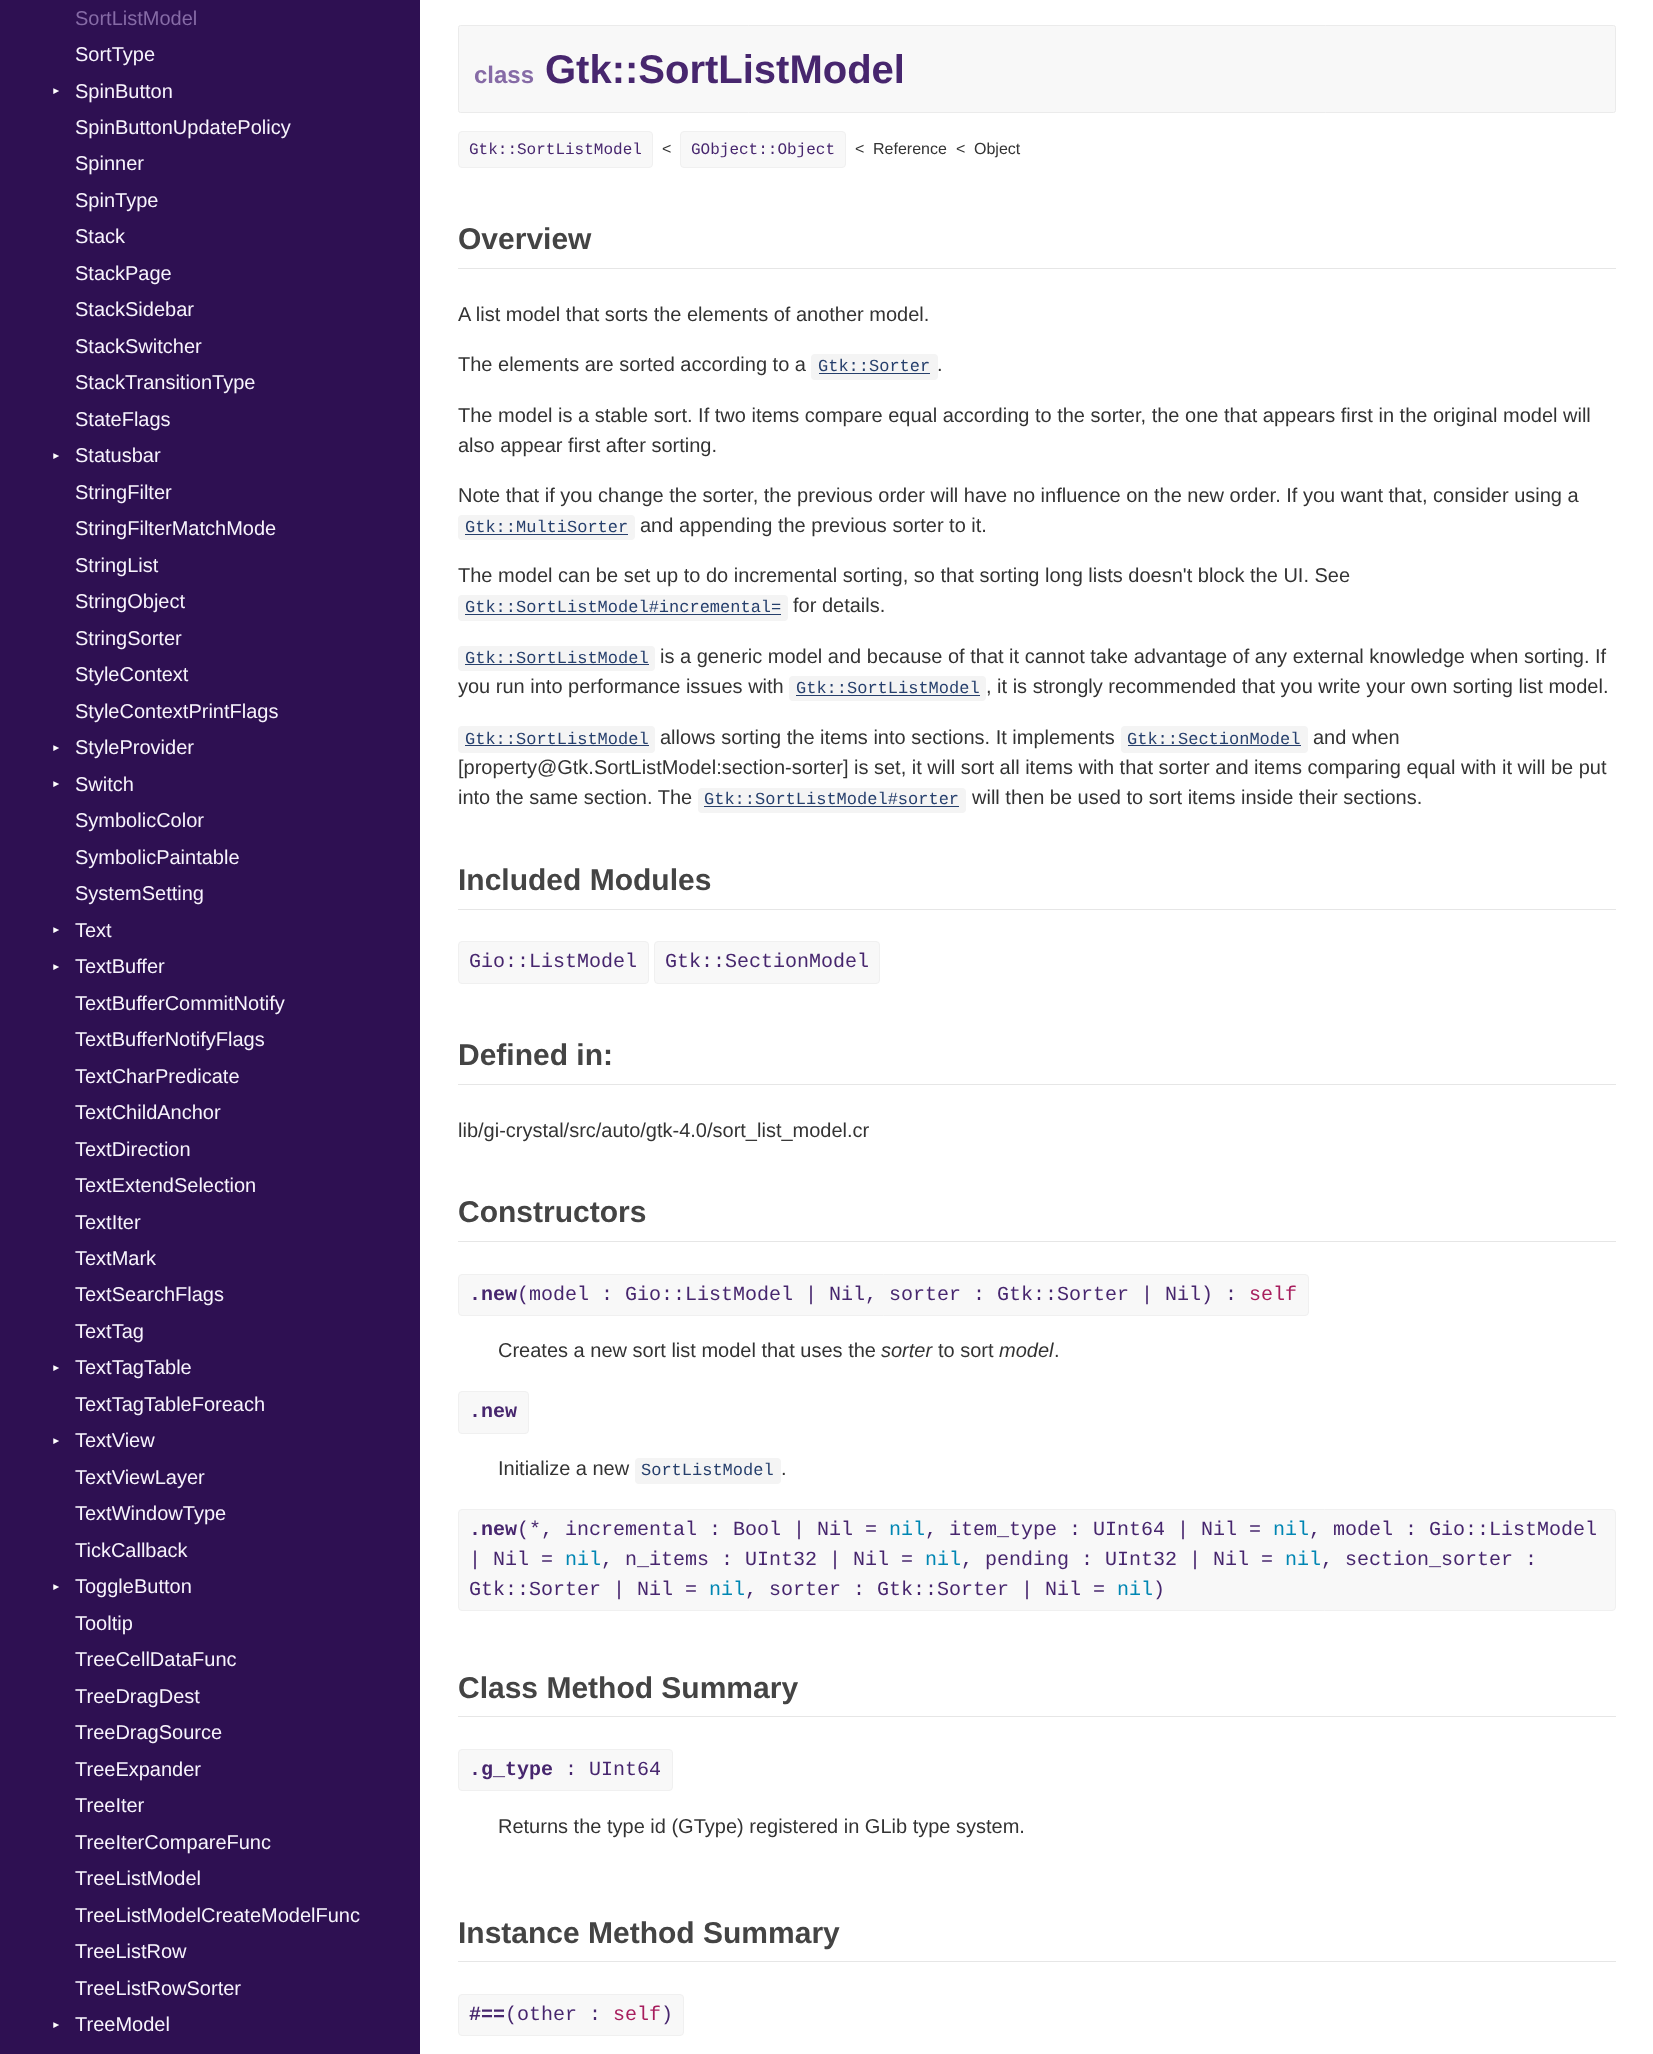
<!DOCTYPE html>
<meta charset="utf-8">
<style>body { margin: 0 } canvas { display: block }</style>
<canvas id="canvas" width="1653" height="2054"></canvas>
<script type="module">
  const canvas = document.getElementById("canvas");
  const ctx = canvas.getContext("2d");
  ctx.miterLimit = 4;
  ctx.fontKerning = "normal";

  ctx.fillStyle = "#ffffff";
  ctx.fillRect(0, 0, 1653, 2054);
  ctx.fillStyle = "#2e1052";
  ctx.fillRect(0, 0, 420, 2054);
  ctx.font = "20px Liberation Sans";
  ctx.fillStyle = "#866ba6";
  ctx.fillText("SortListModel", 75, 25);
  ctx.fillStyle = "#f8f4fd";
  ctx.fillText("SortType", 75, 61);
  ctx.font = "10px Liberation Sans";
  ctx.fillStyle = "#ffffff";
  ctx.save();
  ctx.translate(59, 96);
  ctx.rotate(-90 * Math.PI / 180);
  ctx.fillText("▼", 0, 0);
  ctx.restore();
  ctx.font = "20px Liberation Sans";
  ctx.fillStyle = "#f8f4fd";
  ctx.fillText("SpinButton", 75, 98);
  ctx.fillText("SpinButtonUpdatePolicy", 75, 134);
  ctx.fillText("Spinner", 75, 170);
  ctx.fillText("SpinType", 75, 207);
  ctx.fillText("Stack", 75, 243);
  ctx.fillText("StackPage", 75, 280);
  ctx.fillText("StackSidebar", 75, 316);
  ctx.fillText("StackSwitcher", 75, 353);
  ctx.fillText("StackTransitionType", 75, 389);
  ctx.fillText("StateFlags", 75, 426);
  ctx.font = "10px Liberation Sans";
  ctx.fillStyle = "#ffffff";
  ctx.save();
  ctx.translate(59, 461);
  ctx.rotate(-90 * Math.PI / 180);
  ctx.fillText("▼", 0, 0);
  ctx.restore();
  ctx.font = "20px Liberation Sans";
  ctx.fillStyle = "#f8f4fd";
  ctx.fillText("Statusbar", 75, 462);
  ctx.fillText("StringFilter", 75, 499);
  ctx.fillText("StringFilterMatchMode", 75, 535);
  ctx.fillText("StringList", 75, 572);
  ctx.fillText("StringObject", 75, 608);
  ctx.fillText("StringSorter", 75, 645);
  ctx.fillText("StyleContext", 75, 681);
  ctx.fillText("StyleContextPrintFlags", 75, 718);
  ctx.font = "10px Liberation Sans";
  ctx.fillStyle = "#ffffff";
  ctx.save();
  ctx.translate(59, 753);
  ctx.rotate(-90 * Math.PI / 180);
  ctx.fillText("▼", 0, 0);
  ctx.restore();
  ctx.font = "20px Liberation Sans";
  ctx.fillStyle = "#f8f4fd";
  ctx.fillText("StyleProvider", 75, 754);
  ctx.font = "10px Liberation Sans";
  ctx.fillStyle = "#ffffff";
  ctx.save();
  ctx.translate(59, 789);
  ctx.rotate(-90 * Math.PI / 180);
  ctx.fillText("▼", 0, 0);
  ctx.restore();
  ctx.font = "20px Liberation Sans";
  ctx.fillStyle = "#f8f4fd";
  ctx.fillText("Switch", 75, 791);
  ctx.fillText("SymbolicColor", 75, 827);
  ctx.fillText("SymbolicPaintable", 75, 864);
  ctx.fillText("SystemSetting", 75, 900);
  ctx.font = "10px Liberation Sans";
  ctx.fillStyle = "#ffffff";
  ctx.save();
  ctx.translate(59, 935);
  ctx.rotate(-90 * Math.PI / 180);
  ctx.fillText("▼", 0, 0);
  ctx.restore();
  ctx.font = "20px Liberation Sans";
  ctx.fillStyle = "#f8f4fd";
  ctx.fillText("Text", 75, 937);
  ctx.font = "10px Liberation Sans";
  ctx.fillStyle = "#ffffff";
  ctx.save();
  ctx.translate(59, 972);
  ctx.rotate(-90 * Math.PI / 180);
  ctx.fillText("▼", 0, 0);
  ctx.restore();
  ctx.font = "20px Liberation Sans";
  ctx.fillStyle = "#f8f4fd";
  ctx.fillText("TextBuffer", 75, 973);
  ctx.fillText("TextBufferCommitNotify", 75, 1010);
  ctx.fillText("TextBufferNotifyFlags", 75, 1046);
  ctx.fillText("TextCharPredicate", 75, 1083);
  ctx.fillText("TextChildAnchor", 75, 1119);
  ctx.fillText("TextDirection", 75, 1156);
  ctx.fillText("TextExtendSelection", 75, 1192);
  ctx.fillText("TextIter", 75, 1229);
  ctx.fillText("TextMark", 75, 1265);
  ctx.fillText("TextSearchFlags", 75, 1301);
  ctx.fillText("TextTag", 75, 1338);
  ctx.font = "10px Liberation Sans";
  ctx.fillStyle = "#ffffff";
  ctx.save();
  ctx.translate(59, 1373);
  ctx.rotate(-90 * Math.PI / 180);
  ctx.fillText("▼", 0, 0);
  ctx.restore();
  ctx.font = "20px Liberation Sans";
  ctx.fillStyle = "#f8f4fd";
  ctx.fillText("TextTagTable", 75, 1374);
  ctx.fillText("TextTagTableForeach", 75, 1411);
  ctx.font = "10px Liberation Sans";
  ctx.fillStyle = "#ffffff";
  ctx.save();
  ctx.translate(59, 1446);
  ctx.rotate(-90 * Math.PI / 180);
  ctx.fillText("▼", 0, 0);
  ctx.restore();
  ctx.font = "20px Liberation Sans";
  ctx.fillStyle = "#f8f4fd";
  ctx.fillText("TextView", 75, 1447);
  ctx.fillText("TextViewLayer", 75, 1484);
  ctx.fillText("TextWindowType", 75, 1520);
  ctx.fillText("TickCallback", 75, 1557);
  ctx.font = "10px Liberation Sans";
  ctx.fillStyle = "#ffffff";
  ctx.save();
  ctx.translate(59, 1592);
  ctx.rotate(-90 * Math.PI / 180);
  ctx.fillText("▼", 0, 0);
  ctx.restore();
  ctx.font = "20px Liberation Sans";
  ctx.fillStyle = "#f8f4fd";
  ctx.fillText("ToggleButton", 75, 1593);
  ctx.fillText("Tooltip", 75, 1630);
  ctx.fillText("TreeCellDataFunc", 75, 1666);
  ctx.fillText("TreeDragDest", 75, 1703);
  ctx.fillText("TreeDragSource", 75, 1739);
  ctx.fillText("TreeExpander", 75, 1776);
  ctx.fillText("TreeIter", 75, 1812);
  ctx.fillText("TreeIterCompareFunc", 75, 1849);
  ctx.fillText("TreeListModel", 75, 1885);
  ctx.fillText("TreeListModelCreateModelFunc", 75, 1922);
  ctx.fillText("TreeListRow", 75, 1958);
  ctx.fillText("TreeListRowSorter", 75, 1995);
  ctx.font = "10px Liberation Sans";
  ctx.fillStyle = "#ffffff";
  ctx.save();
  ctx.translate(59, 2030);
  ctx.rotate(-90 * Math.PI / 180);
  ctx.fillText("▼", 0, 0);
  ctx.restore();
  ctx.font = "20px Liberation Sans";
  ctx.fillStyle = "#f8f4fd";
  ctx.fillText("TreeModel", 75, 2031);
  ctx.fillStyle = "#f8f8f8";
  ctx.beginPath();
  ctx.roundRect(458.5, 25.5, 1157, 87, 2);
  ctx.fill();
  ctx.strokeStyle = "#ebebeb";
  ctx.stroke();
  ctx.font = "bold 24px Liberation Sans";
  ctx.fillStyle = "#866ba6";
  ctx.fillText("class", 474, 83);
  ctx.font = "bold 40px Liberation Sans";
  ctx.fillStyle = "#47266e";
  ctx.fillText("Gtk::SortListModel", 545, 83);
  ctx.fillStyle = "#f8f8f8";
  ctx.beginPath();
  ctx.roundRect(458.5, 131.5, 194, 36, 3.5);
  ctx.fill();
  ctx.strokeStyle = "#f0f0f0";
  ctx.stroke();
  ctx.font = "16px Liberation Mono";
  ctx.fillStyle = "#47266e";
  ctx.fillText("Gtk::SortListModel", 469, 154);
  ctx.font = "16px Liberation Sans";
  ctx.fillStyle = "#333333";
  ctx.fillText("<", 662, 154);
  ctx.fillStyle = "#f8f8f8";
  ctx.beginPath();
  ctx.roundRect(680.5, 131.5, 165, 36, 3.5);
  ctx.fill();
  ctx.stroke();
  ctx.font = "16px Liberation Mono";
  ctx.fillStyle = "#47266e";
  ctx.fillText("GObject::Object", 691, 154);
  ctx.font = "16px Liberation Sans";
  ctx.fillStyle = "#333333";
  ctx.fillText("<", 855, 154);
  ctx.fillText("Reference", 873, 154);
  ctx.fillText("<", 956, 154);
  ctx.fillText("Object", 974, 154);
  ctx.fillStyle = "#e6e6e6";
  ctx.fillRect(458, 268, 1158, 1);
  ctx.font = "bold 30px Liberation Sans";
  ctx.fillStyle = "#444444";
  ctx.fillText("Overview", 458, 249);
  ctx.font = "20px Liberation Sans";
  ctx.fillStyle = "#333333";
  ctx.fillText("A list model that sorts the elements of another model.", 458, 321);
  ctx.fillText("The elements are sorted according to a", 458, 371);
  ctx.fillStyle = "#f4f4f4";
  ctx.beginPath();
  ctx.roundRect(811, 354, 127, 26, 4);
  ctx.fill();
  ctx.font = "17px Liberation Mono";
  ctx.fillStyle = "#263f6c";
  ctx.fillText("Gtk::Sorter", 818, 371);
  ctx.fillRect(819, 373, 111, 1);
  ctx.font = "20px Liberation Sans";
  ctx.fillStyle = "#333333";
  ctx.fillText(".", 937, 371);
  ctx.fillText("The model is a stable sort. If two items compare equal according to the sorter, the one that appears first in the original model will", 458, 422);
  ctx.fillText("also appear first after sorting.", 458, 452);
  ctx.fillText("Note that if you change the sorter, the previous order will have no influence on the new order. If you want that, consider using a", 458, 502);
  ctx.fillStyle = "#f4f4f4";
  ctx.beginPath();
  ctx.roundRect(458, 515, 177, 25, 4);
  ctx.fill();
  ctx.font = "17px Liberation Mono";
  ctx.fillStyle = "#263f6c";
  ctx.fillText("Gtk::MultiSorter", 465, 532);
  ctx.fillRect(465, 534, 163, 1);
  ctx.font = "20px Liberation Sans";
  ctx.fillStyle = "#333333";
  ctx.fillText("and appending the previous sorter to it.", 640, 532);
  ctx.fillText("The model can be set up to do incremental sorting, so that sorting long lists doesn't block the UI. See", 458, 582);
  ctx.fillStyle = "#f4f4f4";
  ctx.beginPath();
  ctx.roundRect(458, 595, 330, 26, 4);
  ctx.fill();
  ctx.font = "17px Liberation Mono";
  ctx.fillStyle = "#263f6c";
  ctx.fillText("Gtk::SortListModel#incremental=", 465, 612);
  ctx.fillRect(465, 614, 316, 1);
  ctx.font = "20px Liberation Sans";
  ctx.fillStyle = "#333333";
  ctx.fillText("for details.", 793, 612);
  ctx.fillStyle = "#f4f4f4";
  ctx.beginPath();
  ctx.roundRect(458, 646, 197, 25, 4);
  ctx.fill();
  ctx.font = "17px Liberation Mono";
  ctx.fillStyle = "#263f6c";
  ctx.fillText("Gtk::SortListModel", 465, 663);
  ctx.fillRect(465, 664, 184, 1);
  ctx.font = "20px Liberation Sans";
  ctx.fillStyle = "#333333";
  ctx.fillText("is a generic model and because of that it cannot take advantage of any external knowledge when sorting. If", 660, 663);
  ctx.fillText("you run into performance issues with", 458, 693);
  ctx.fillStyle = "#f4f4f4";
  ctx.beginPath();
  ctx.roundRect(789, 676, 197, 25, 4);
  ctx.fill();
  ctx.font = "17px Liberation Mono";
  ctx.fillStyle = "#263f6c";
  ctx.fillText("Gtk::SortListModel", 796, 693);
  ctx.fillRect(796, 695, 184, 1);
  ctx.font = "20px Liberation Sans";
  ctx.fillStyle = "#333333";
  ctx.fillText(", it is strongly recommended that you write your own sorting list model.", 986, 693);
  ctx.fillStyle = "#f4f4f4";
  ctx.beginPath();
  ctx.roundRect(458, 726, 197, 27, 4);
  ctx.fill();
  ctx.font = "17px Liberation Mono";
  ctx.fillStyle = "#263f6c";
  ctx.fillText("Gtk::SortListModel", 465, 744);
  ctx.fillRect(465, 745, 184, 1);
  ctx.font = "20px Liberation Sans";
  ctx.fillStyle = "#333333";
  ctx.fillText("allows sorting the items into sections. It implements", 660, 744);
  ctx.fillStyle = "#f4f4f4";
  ctx.beginPath();
  ctx.roundRect(1121, 726, 187, 27, 4);
  ctx.fill();
  ctx.font = "17px Liberation Mono";
  ctx.fillStyle = "#263f6c";
  ctx.fillText("Gtk::SectionModel", 1127, 744);
  ctx.fillRect(1128, 745, 173, 1);
  ctx.font = "20px Liberation Sans";
  ctx.fillStyle = "#333333";
  ctx.fillText("and when", 1313, 744);
  ctx.fillText("[property@Gtk.SortListModel:section-sorter] is set, it will sort all items with that sorter and items comparing equal with it will be put", 458, 774);
  ctx.fillText("into the same section. The", 458, 804);
  ctx.fillStyle = "#f4f4f4";
  ctx.beginPath();
  ctx.roundRect(698, 788, 268, 25, 4);
  ctx.fill();
  ctx.font = "17px Liberation Mono";
  ctx.fillStyle = "#263f6c";
  ctx.fillText("Gtk::SortListModel#sorter", 704, 804);
  ctx.fillRect(704, 806, 255, 1);
  ctx.font = "20px Liberation Sans";
  ctx.fillStyle = "#333333";
  ctx.fillText("will then be used to sort items inside their sections.", 972, 804);
  ctx.fillStyle = "#e6e6e6";
  ctx.fillRect(458, 909, 1158, 1);
  ctx.font = "bold 30px Liberation Sans";
  ctx.fillStyle = "#444444";
  ctx.fillText("Included Modules", 458, 890);
  ctx.fillStyle = "#f8f8f8";
  ctx.beginPath();
  ctx.roundRect(458.5, 941.5, 190, 42, 3.5);
  ctx.fill();
  ctx.stroke();
  ctx.font = "20px Liberation Mono";
  ctx.fillStyle = "#47266e";
  ctx.fillText("Gio::ListModel", 469, 967);
  ctx.fillStyle = "#f8f8f8";
  ctx.beginPath();
  ctx.roundRect(654.5, 941.5, 225, 42, 3.5);
  ctx.fill();
  ctx.stroke();
  ctx.fillStyle = "#47266e";
  ctx.fillText("Gtk::SectionModel", 665, 967);
  ctx.fillStyle = "#e6e6e6";
  ctx.fillRect(458, 1084, 1158, 1);
  ctx.font = "bold 30px Liberation Sans";
  ctx.fillStyle = "#444444";
  ctx.fillText("Defined in:", 458, 1065);
  ctx.font = "20px Liberation Sans";
  ctx.fillStyle = "#333333";
  ctx.fillText("lib/gi-crystal/src/auto/gtk-4.0/sort_list_model.cr", 458, 1137);
  ctx.fillStyle = "#e6e6e6";
  ctx.fillRect(458, 1241, 1158, 1);
  ctx.font = "bold 30px Liberation Sans";
  ctx.fillStyle = "#444444";
  ctx.fillText("Constructors", 458, 1222);
  ctx.fillStyle = "#f8f8f8";
  ctx.beginPath();
  ctx.roundRect(458.5, 1274.5, 850, 41, 3.5);
  ctx.fill();
  ctx.stroke();
  ctx.font = "bold 20px Liberation Mono";
  ctx.fillStyle = "#47266e";
  ctx.fillText(".new", 469, 1300);
  ctx.font = "20px Liberation Mono";
  ctx.fillText("(model : Gio::ListModel | Nil, sorter : Gtk::Sorter | Nil) :", 517, 1300);
  ctx.fillStyle = "#a71d5d";
  ctx.fillText("self", 1249, 1300);
  ctx.font = "20px Liberation Sans";
  ctx.fillStyle = "#333333";
  ctx.fillText("Creates a new sort list model that uses the", 498, 1357);
  ctx.font = "italic 20px Liberation Sans";
  ctx.fillText("sorter", 881, 1357);
  ctx.font = "20px Liberation Sans";
  ctx.fillText("to sort", 938, 1357);
  ctx.font = "italic 20px Liberation Sans";
  ctx.fillText("model", 999, 1357);
  ctx.font = "20px Liberation Sans";
  ctx.fillText(".", 1054, 1357);
  ctx.fillStyle = "#f8f8f8";
  ctx.beginPath();
  ctx.roundRect(458.5, 1391.5, 70, 42, 3.5);
  ctx.fill();
  ctx.stroke();
  ctx.font = "bold 20px Liberation Mono";
  ctx.fillStyle = "#47266e";
  ctx.fillText(".new", 469, 1417);
  ctx.font = "20px Liberation Sans";
  ctx.fillStyle = "#333333";
  ctx.fillText("Initialize a new", 498, 1475);
  ctx.fillStyle = "#f4f4f4";
  ctx.beginPath();
  ctx.roundRect(635, 1458, 146, 26, 4);
  ctx.fill();
  ctx.font = "17px Liberation Mono";
  ctx.fillStyle = "#263f6c";
  ctx.fillText("SortListModel", 641, 1475);
  ctx.font = "20px Liberation Sans";
  ctx.fillStyle = "#333333";
  ctx.fillText(".", 781, 1475);
  ctx.fillStyle = "#f8f8f8";
  ctx.beginPath();
  ctx.roundRect(458.5, 1509.5, 1157, 101, 3.5);
  ctx.fill();
  ctx.stroke();
  ctx.font = "bold 20px Liberation Mono";
  ctx.fillStyle = "#47266e";
  ctx.fillText(".new", 469, 1535);
  ctx.font = "20px Liberation Mono";
  ctx.fillText("(*, incremental : Bool | Nil =", 517, 1535);
  ctx.fillStyle = "#0086b3";
  ctx.fillText("nil", 889, 1535);
  ctx.fillStyle = "#47266e";
  ctx.fillText(", item_type : UInt64 | Nil =", 925, 1535);
  ctx.fillStyle = "#0086b3";
  ctx.fillText("nil", 1273, 1535);
  ctx.fillStyle = "#47266e";
  ctx.fillText(", model : Gio::ListModel", 1309, 1535);
  ctx.fillText("| Nil =", 469, 1565);
  ctx.fillStyle = "#0086b3";
  ctx.fillText("nil", 565, 1565);
  ctx.fillStyle = "#47266e";
  ctx.fillText(", n_items : UInt32 | Nil =", 601, 1565);
  ctx.fillStyle = "#0086b3";
  ctx.fillText("nil", 925, 1565);
  ctx.fillStyle = "#47266e";
  ctx.fillText(", pending : UInt32 | Nil =", 961, 1565);
  ctx.fillStyle = "#0086b3";
  ctx.fillText("nil", 1285, 1565);
  ctx.fillStyle = "#47266e";
  ctx.fillText(", section_sorter :", 1321, 1565);
  ctx.fillText("Gtk::Sorter | Nil =", 469, 1595);
  ctx.fillStyle = "#0086b3";
  ctx.fillText("nil", 709, 1595);
  ctx.fillStyle = "#47266e";
  ctx.fillText(", sorter : Gtk::Sorter | Nil =", 745, 1595);
  ctx.fillStyle = "#0086b3";
  ctx.fillText("nil", 1117, 1595);
  ctx.fillStyle = "#47266e";
  ctx.fillText(")", 1153, 1595);
  ctx.fillStyle = "#e6e6e6";
  ctx.fillRect(458, 1716, 1158, 1);
  ctx.font = "bold 30px Liberation Sans";
  ctx.fillStyle = "#444444";
  ctx.fillText("Class Method Summary", 458, 1698);
  ctx.fillStyle = "#f8f8f8";
  ctx.beginPath();
  ctx.roundRect(458.5, 1749.5, 214, 41, 3.5);
  ctx.fill();
  ctx.stroke();
  ctx.font = "bold 20px Liberation Mono";
  ctx.fillStyle = "#47266e";
  ctx.fillText(".g_type", 469, 1775);
  ctx.font = "20px Liberation Mono";
  ctx.fillText(": UInt64", 565, 1775);
  ctx.font = "20px Liberation Sans";
  ctx.fillStyle = "#333333";
  ctx.fillText("Returns the type id (GType) registered in GLib type system.", 498, 1833);
  ctx.fillStyle = "#e6e6e6";
  ctx.fillRect(458, 1961, 1158, 1);
  ctx.font = "bold 30px Liberation Sans";
  ctx.fillStyle = "#444444";
  ctx.fillText("Instance Method Summary", 458, 1943);
  ctx.fillStyle = "#f8f8f8";
  ctx.beginPath();
  ctx.roundRect(458.5, 1994.5, 225, 41, 3.5);
  ctx.fill();
  ctx.stroke();
  ctx.font = "bold 20px Liberation Mono";
  ctx.fillStyle = "#47266e";
  ctx.fillText("#==", 469, 2020);
  ctx.font = "20px Liberation Mono";
  ctx.fillText("(other :", 505, 2020);
  ctx.fillStyle = "#a71d5d";
  ctx.fillText("self", 613, 2020);
  ctx.fillStyle = "#47266e";
  ctx.fillText(")", 661, 2020);
</script>
